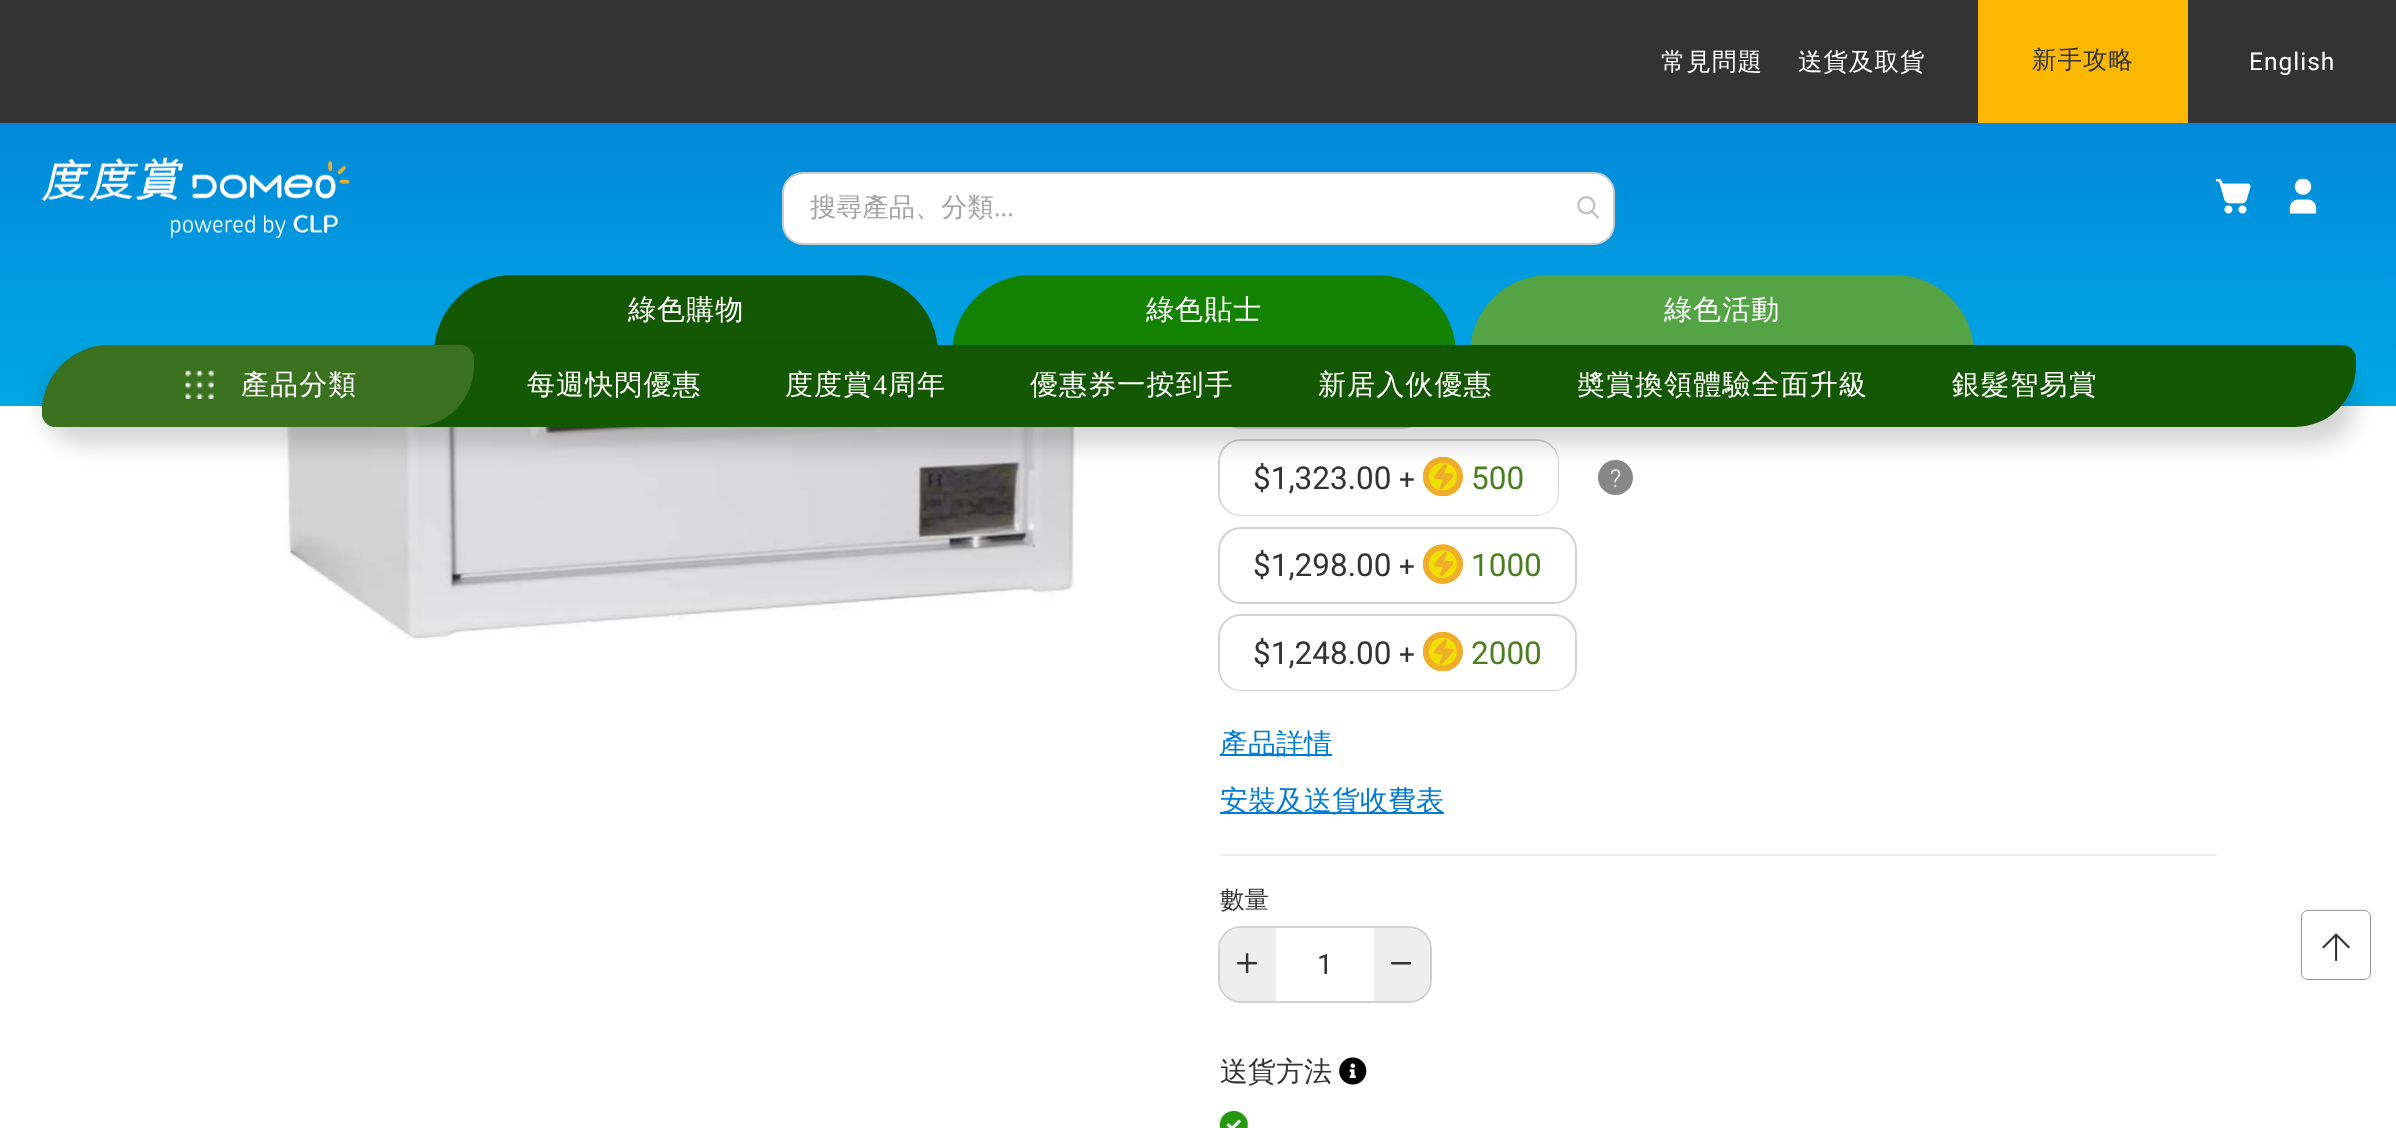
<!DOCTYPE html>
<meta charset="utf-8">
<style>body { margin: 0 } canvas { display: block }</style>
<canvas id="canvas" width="2396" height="1128"></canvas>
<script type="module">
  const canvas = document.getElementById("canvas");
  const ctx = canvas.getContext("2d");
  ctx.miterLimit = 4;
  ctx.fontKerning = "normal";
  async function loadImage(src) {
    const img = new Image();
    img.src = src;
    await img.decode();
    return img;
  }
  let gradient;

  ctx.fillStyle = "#ffffff";
  ctx.fillRect(0, 0, 2396, 1128);
  ctx.beginPath();
  ctx.roundRect(1219, 353, 206, 75, 22);
  ctx.strokeStyle = "#d1d1d1";
  ctx.lineWidth = 2;
  ctx.stroke();
  gradient = ctx.createLinearGradient(1199, 0, 1199, 406);
  gradient.addColorStop(0, "#007bd3");
  gradient.addColorStop(1, "#00a9e6");
  ctx.fillStyle = gradient;
  ctx.fillRect(0, 123, 2396, 283);
  ctx.fillStyle = "#333333";
  ctx.fillRect(0, 0, 2396, 123);
  ctx.letterSpacing = "1px";
  ctx.font = "500 24.5px WenQuanYi Zen Hei";
  ctx.fillStyle = "#ffffff";
  ctx.fillText("常見問題", 1661, 70);
  ctx.fillText("送貨及取貨", 1798, 70);
  ctx.fillStyle = "#fcb800";
  ctx.fillRect(1978, 0, 210, 123);
  ctx.fillStyle = "#333333";
  ctx.fillText("新手攻略", 2032, 68);
  ctx.font = "24.5px Roboto";
  ctx.fillStyle = "#ffffff";
  ctx.fillText("English", 2249, 70);
  ctx.drawImage(await loadImage("img1.png"), 42, 157, 308, 81);
  ctx.beginPath();
  ctx.roundRect(783, 173, 831, 71, 20);
  ctx.fill();
  ctx.strokeStyle = "#cccccc";
  ctx.stroke();
  ctx.letterSpacing = "0px";
  ctx.font = "500 26.25px WenQuanYi Zen Hei";
  ctx.fillStyle = "#a2a2a2";
  ctx.fillText("搜尋產品、分類", 810, 216);
  ctx.font = "26.25px Liberation Serif";
  ctx.fillText("...", 994, 216);
  ctx.drawImage(await loadImage("img2.png"), 1577, 196, 22, 23);
  ctx.drawImage(await loadImage("img3.png"), 2216, 179, 35, 35);
  ctx.drawImage(await loadImage("img4.png"), 2289, 179, 28, 35);
  ctx.fillStyle = "#135800";
  ctx.beginPath();
  ctx.roundRect(434, 275, 504, 79, [79, 79, 0, 0]);
  ctx.fill();
  ctx.drawImage(await loadImage("img6.png"), 281, 427, 796, 213);
  ctx.beginPath();
  ctx.roundRect(1219, 440, 339, 75, 22);
  ctx.strokeStyle = "#d1d1d1";
  ctx.stroke();
  ctx.fillStyle = "#ffffff";
  ctx.beginPath();
  ctx.roundRect(1220, 441, 338, 74, 21);
  ctx.fill();
  ctx.drawImage(await loadImage("img7.png"), 1423, 457, 40, 39);
  ctx.fillStyle = "#888888";
  ctx.beginPath();
  ctx.arc(1615.5, 477.5, 17.5, 0, Math.PI * 2);
  ctx.fill();
  ctx.fillStyle = "rgba(0, 0, 0, 0.16)";
  ctx.filter = "blur(10.5px)";
  ctx.beginPath();
  ctx.roundRect(42, 362, 2314, 83, 68);
  ctx.fill();
  ctx.filter = "none";
  ctx.fillStyle = "#138200";
  ctx.beginPath();
  ctx.roundRect(952, 275, 504, 79, [79, 79, 0, 0]);
  ctx.fill();
  ctx.letterSpacing = "1.1px";
  ctx.font = "500 28px WenQuanYi Zen Hei";
  ctx.fillStyle = "#ffffff";
  ctx.fillText("綠色貼士", 1146, 319);
  ctx.fillText("綠色購物", 628, 319);
  ctx.fillStyle = "#54a446";
  ctx.beginPath();
  ctx.roundRect(1470, 275, 504, 79, [79, 79, 0, 0]);
  ctx.fill();
  ctx.fillStyle = "#135800";
  ctx.beginPath();
  ctx.roundRect(42, 345, 2314, 82, [68, 14, 61, 14]);
  ctx.fill();
  ctx.fillStyle = "#3a711f";
  ctx.beginPath();
  ctx.roundRect(42, 345, 432, 82, [68, 14, 61, 14]);
  ctx.fill();
  ctx.drawImage(await loadImage("img5.png"), 185, 370, 29, 29);
  ctx.fillStyle = "#ffffff";
  ctx.fillText("產品分類", 241, 394);
  ctx.fillText("每週快閃優惠", 527, 394);
  ctx.fillText("度度賞", 785, 394);
  ctx.font = "28px Liberation Serif";
  ctx.fillText("4", 873, 394);
  ctx.font = "500 28px WenQuanYi Zen Hei";
  ctx.fillText("周年", 888, 394);
  ctx.fillText("優惠券一按到手", 1030, 394);
  ctx.fillText("新居入伙優惠", 1318, 394);
  ctx.fillText("奬賞換領體驗全面升級", 1577, 394);
  ctx.fillText("銀髮智易賞", 1952, 394);
  ctx.fillText("綠色活動", 1664, 319);
  ctx.letterSpacing = "0px";
  ctx.font = "31.5px Roboto";
  ctx.fillStyle = "#333333";
  ctx.fillText("$1,323.00", 1253, 489);
  ctx.font = "28px Roboto";
  ctx.fillText("+", 1399, 489);
  ctx.font = "31.5px Roboto";
  ctx.fillStyle = "#4a7e20";
  ctx.fillText("500", 1471, 489);
  ctx.beginPath();
  ctx.roundRect(1219, 528, 357, 75, 22);
  ctx.stroke();
  ctx.fillStyle = "#ffffff";
  ctx.beginPath();
  ctx.roundRect(1220, 529, 355, 73, 21);
  ctx.fill();
  ctx.fillStyle = "#333333";
  ctx.fillText("$1,298.00", 1253, 576);
  ctx.font = "28px Roboto";
  ctx.fillText("+", 1399, 576);
  ctx.drawImage(await loadImage("img8.png"), 1423, 544, 40, 40);
  ctx.font = "31.5px Roboto";
  ctx.fillStyle = "#4a7e20";
  ctx.fillText("1000", 1471, 576);
  ctx.beginPath();
  ctx.roundRect(1219, 615, 357, 75, 22);
  ctx.stroke();
  ctx.fillStyle = "#ffffff";
  ctx.beginPath();
  ctx.roundRect(1220, 616, 355, 74, 21);
  ctx.fill();
  ctx.fillStyle = "#333333";
  ctx.fillText("$1,248.00", 1253, 664);
  ctx.font = "28px Roboto";
  ctx.fillText("+", 1399, 664);
  ctx.drawImage(await loadImage("img7.png"), 1423, 632, 40, 39);
  ctx.font = "31.5px Roboto";
  ctx.fillStyle = "#4a7e20";
  ctx.fillText("2000", 1471, 664);
  ctx.font = "300 24.5px Roboto";
  ctx.fillStyle = "#ffffff";
  ctx.fillText("?", 1610, 487);
  ctx.fillStyle = "#eeeeee";
  ctx.fillRect(1220, 854, 997, 2);
  ctx.fillStyle = "#007bd3";
  ctx.fillRect(1220, 754, 112, 2);
  ctx.font = "500 28px WenQuanYi Zen Hei";
  ctx.fillText("產品詳情", 1220, 753);
  ctx.fillRect(1220, 812, 224, 2);
  ctx.fillText("安裝及送貨收費表", 1220, 810);
  ctx.font = "500 24.5px WenQuanYi Zen Hei";
  ctx.fillStyle = "#333333";
  ctx.fillText("數量", 1220, 908);
  ctx.beginPath();
  ctx.roundRect(1219, 927, 212, 75, 22);
  ctx.stroke();
  ctx.fillStyle = "#eeeeee";
  ctx.beginPath();
  ctx.roundRect(1220, 928, 56, 73, [21, 0, 0, 21]);
  ctx.fill();
  ctx.drawImage(await loadImage("img9.png"), 1237, 953, 20, 20);
  ctx.font = "28px Roboto";
  ctx.fillStyle = "#333333";
  ctx.fillText("1", 1317, 974);
  ctx.fillStyle = "#eeeeee";
  ctx.beginPath();
  ctx.roundRect(1374, 928, 56, 73, [0, 21, 21, 0]);
  ctx.fill();
  ctx.fillStyle = "#333333";
  ctx.beginPath();
  ctx.moveTo(1410.5, 962);
  ctx.bezierCurveTo(1411.5, 962, 1411, 964.5, 1410.5, 964.5);
  ctx.lineTo(1391.5, 964.5);
  ctx.lineTo(1391, 962.5);
  ctx.lineTo(1391.5, 962);
  ctx.closePath();
  ctx.fill();
  ctx.font = "500 28px WenQuanYi Zen Hei";
  ctx.fillText("送貨方法", 1220, 1081);
  ctx.drawImage(await loadImage("img10.png"), 1339, 1057, 28, 28);
  ctx.drawImage(await loadImage("img11.png"), 1219, 1111, 29, 17);
  ctx.beginPath();
  ctx.roundRect(2301.45, 910.45, 69.1, 69.1, 6.55);
  ctx.strokeStyle = "#888888";
  ctx.lineWidth = 0.9;
  ctx.stroke();
  ctx.drawImage(await loadImage("img12.png"), 2322, 933, 28, 28);
</script>
